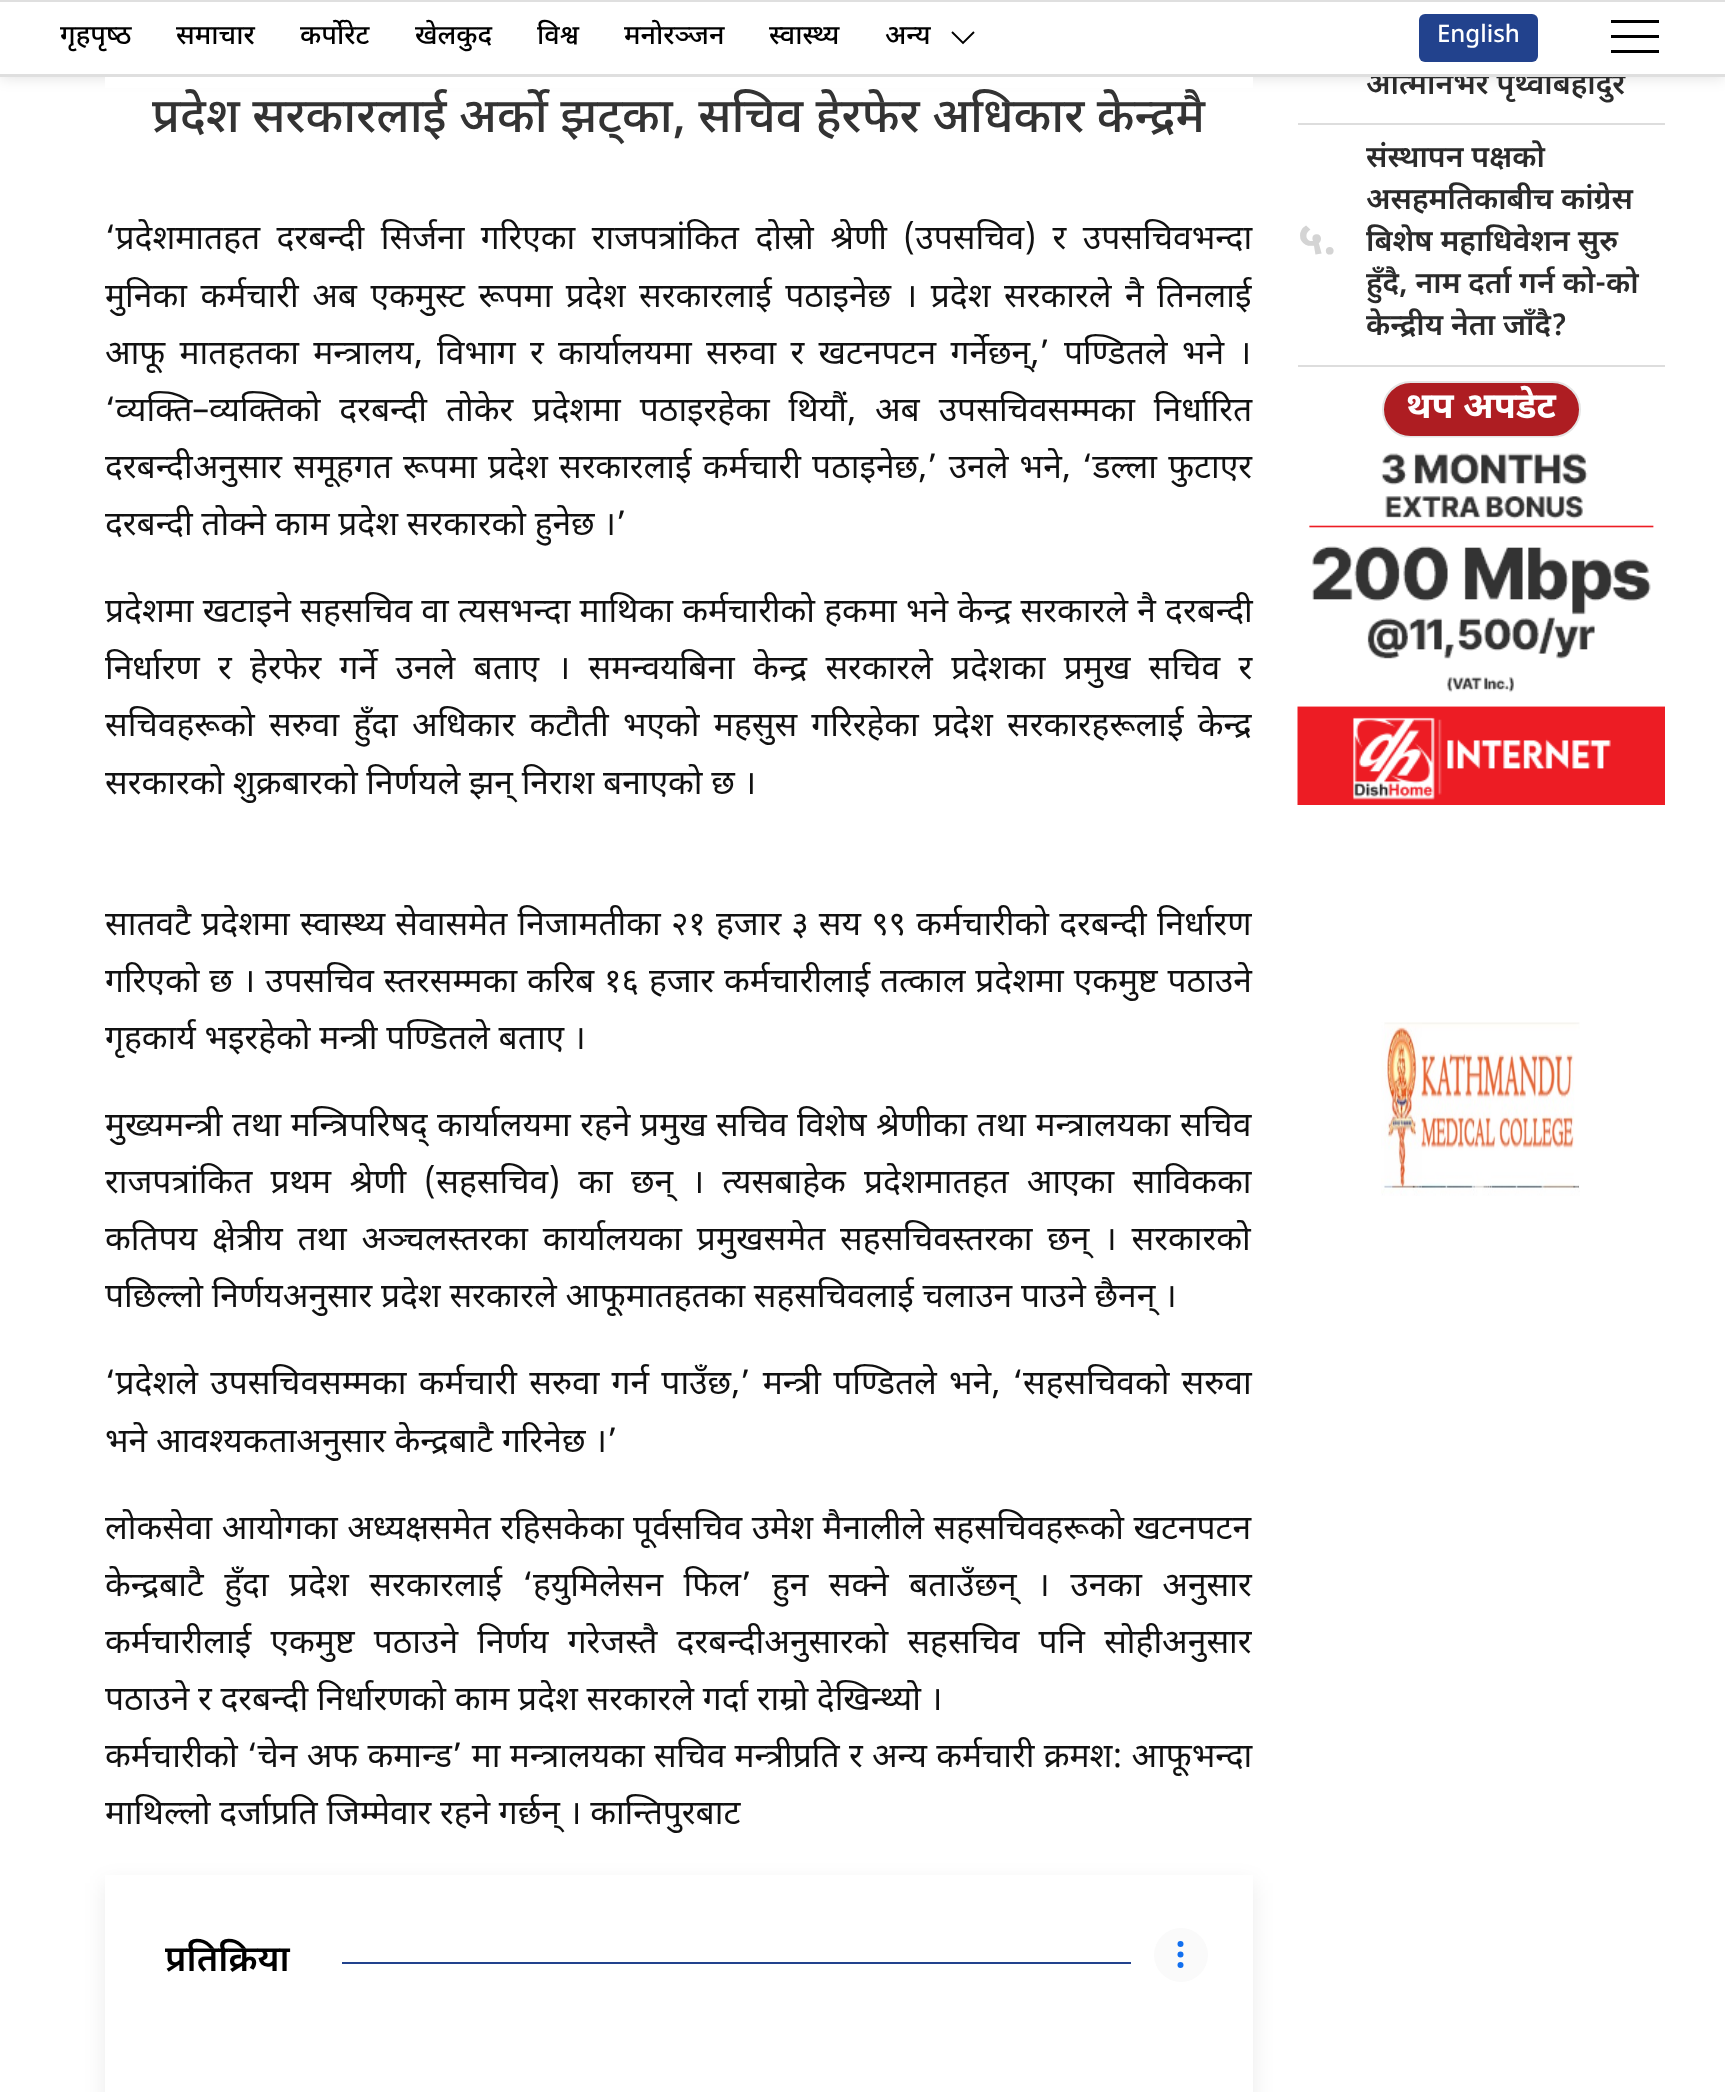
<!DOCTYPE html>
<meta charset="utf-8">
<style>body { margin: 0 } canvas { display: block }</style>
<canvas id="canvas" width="1725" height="2092"></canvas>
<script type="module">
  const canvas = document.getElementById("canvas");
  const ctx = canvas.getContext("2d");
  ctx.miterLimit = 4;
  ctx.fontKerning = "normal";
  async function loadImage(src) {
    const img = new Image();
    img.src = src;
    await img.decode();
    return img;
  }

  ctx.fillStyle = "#ffffff";
  ctx.fillRect(0, 0, 1725, 2092);
  ctx.fillStyle = "rgba(0, 0, 0, 0.13)";
  ctx.filter = "blur(7.5px)";
  ctx.beginPath();
  ctx.rect(0, 0, 1725, 77);
  ctx.fill();
  ctx.filter = "none";
  ctx.font = "600 30px Noto Sans Devanagari";
  ctx.fillStyle = "#2b2b2b";
  ctx.fillText("आत्मनिर्भर पृथ्वीबहादुर", 1366, 94);
  ctx.fillStyle = "#ffffff";
  ctx.fillRect(0, 2, 1725, 72);
  ctx.fillStyle = "#dfdfdf";
  ctx.fillRect(0, 0, 1725, 2);
  ctx.fillRect(0, 74, 1725, 3);
  ctx.font = "500 27px Noto Sans Devanagari";
  ctx.fillStyle = "#000000";
  ctx.fillText("गृहपृष्‍ठ", 60, 44);
  ctx.fillText("समाचार", 176, 44);
  ctx.fillText("कर्पोरेट", 300, 44);
  ctx.fillText("खेलकुद", 415, 44);
  ctx.fillText("विश्व", 537, 44);
  ctx.fillText("मनोरञ्जन", 624, 44);
  ctx.fillText("स्वास्थ्य", 769, 44);
  ctx.fillText("अन्य", 885, 44);
  ctx.beginPath();
  ctx.moveTo(974, 32);
  ctx.lineTo(963, 43);
  ctx.lineTo(952, 32);
  ctx.strokeStyle = "#000000";
  ctx.lineWidth = 1.9;
  ctx.stroke();
  ctx.fillStyle = "#22428d";
  ctx.beginPath();
  ctx.roundRect(1419, 14, 119, 48, 6);
  ctx.fill();
  ctx.font = "500 24px Noto Sans Devanagari";
  ctx.fillStyle = "#ffffff";
  ctx.fillText("English", 1437, 42);
  ctx.fillStyle = "#000000";
  ctx.fillRect(1611, 20, 48, 3);
  ctx.fillRect(1611, 35, 48, 3);
  ctx.fillRect(1611, 50, 48, 3);
  ctx.fillStyle = "#ffffff";
  ctx.fillRect(105, 77, 1148, 11);
  ctx.font = "500 48px Noto Sans Devanagari";
  ctx.fillStyle = "#333333";
  ctx.fillText("प्रदेश सरकारलाई अर्को झट्का, सचिव हेरफेर अधिकार केन्द्रमै", 152, 132);
  ctx.wordSpacing = "7.75px";
  ctx.font = "33.6px Noto Sans Devanagari";
  ctx.fillStyle = "#111111";
  ctx.fillText("‘प्रदेशमातहत दरबन्दी सिर्जना गरिएका राजपत्रांकित दोस्रो श्रेणी (उपसचिव) र उपसचिवभन्दा", 105, 249);
  ctx.wordSpacing = "4.75px";
  ctx.fillText("मुनिका कर्मचारी अब एकमुस्ट रूपमा प्रदेश सरकारलाई पठाइनेछ । प्रदेश सरकारले नै तिनलाई", 105, 307);
  ctx.wordSpacing = "5.6px";
  ctx.fillText("आफू मातहतका मन्त्रालय, विभाग र कार्यालयमा सरुवा र खटनपटन गर्नेछन्,’ पण्डितले भने ।", 105, 364);
  ctx.wordSpacing = "10.25px";
  ctx.fillText("‘व्यक्ति–व्यक्तिको दरबन्दी तोकेर प्रदेशमा पठाइरहेका थियौं, अब उपसचिवसम्मका निर्धारित", 105, 421);
  ctx.wordSpacing = "2.4px";
  ctx.fillText("दरबन्दीअनुसार समूहगत रूपमा प्रदेश सरकारलाई कर्मचारी पठाइनेछ,’ उनले भने, ‘डल्ला फुटाएर", 105, 478);
  ctx.wordSpacing = "0px";
  ctx.fillText("दरबन्दी तोक्ने काम प्रदेश सरकारको हुनेछ ।’", 105, 535);
  ctx.wordSpacing = "0.5px";
  ctx.fillText("प्रदेशमा खटाइने सहसचिव वा त्यसभन्दा माथिका कर्मचारीको हकमा भने केन्द्र सरकारले नै दरबन्दी", 105, 622);
  ctx.wordSpacing = "9.6px";
  ctx.fillText("निर्धारण र हेरफेर गर्ने उनले बताए । समन्वयबिना केन्द्र सरकारले प्रदेशका प्रमुख सचिव र", 105, 679);
  ctx.wordSpacing = "5.5px";
  ctx.fillText("सचिवहरूको सरुवा हुँदा अधिकार कटौती भएको महसुस गरिरहेका प्रदेश सरकारहरूलाई केन्द्र", 105, 736);
  ctx.wordSpacing = "0px";
  ctx.fillText("सरकारको शुक्रबारको निर्णयले झन् निराश बनाएको छ ।", 105, 794);
  ctx.wordSpacing = "1.4px";
  ctx.fillText("सातवटै प्रदेशमा स्वास्थ्य सेवासमेत निजामतीका २१ हजार ३ सय ९९ कर्मचारीको दरबन्दी निर्धारण", 105, 935);
  ctx.wordSpacing = "1.1px";
  ctx.fillText("गरिएको छ । उपसचिव स्तरसम्मका करिब १६ हजार कर्मचारीलाई तत्काल प्रदेशमा एकमुष्ट पठाउने", 105, 992);
  ctx.wordSpacing = "0px";
  ctx.fillText("गृहकार्य भइरहेको मन्त्री पण्डितले बताए ।", 105, 1049);
  ctx.wordSpacing = "0.75px";
  ctx.fillText("मुख्यमन्त्री तथा मन्त्रिपरिषद् कार्यालयमा रहने प्रमुख सचिव विशेष श्रेणीका तथा मन्त्रालयका सचिव", 105, 1136);
  ctx.wordSpacing = "9.5px";
  ctx.fillText("राजपत्रांकित प्रथम श्रेणी (सहसचिव) का छन् । त्यसबाहेक प्रदेशमातहत आएका साविकका", 105, 1193);
  ctx.wordSpacing = "6px";
  ctx.fillText("कतिपय क्षेत्रीय तथा अञ्चलस्तरका कार्यालयका प्रमुखसमेत सहसचिवस्तरका छन् । सरकारको", 105, 1250);
  ctx.wordSpacing = "0px";
  ctx.fillText("पछिल्लो निर्णयअनुसार प्रदेश सरकारले आफूमातहतका सहसचिवलाई चलाउन पाउने छैनन् ।", 105, 1307);
  ctx.wordSpacing = "3.5px";
  ctx.fillText("‘प्रदेशले उपसचिवसम्मका कर्मचारी सरुवा गर्न पाउँछ,’ मन्त्री पण्डितले भने, ‘सहसचिवको सरुवा", 105, 1394);
  ctx.wordSpacing = "0px";
  ctx.fillText("भने आवश्यकताअनुसार केन्द्रबाटै गरिनेछ ।’", 105, 1452);
  ctx.wordSpacing = "0.75px";
  ctx.fillText("लोकसेवा आयोगका अध्यक्षसमेत रहिसकेका पूर्वसचिव उमेश मैनालीले सहसचिवहरूको खटनपटन", 105, 1539);
  ctx.wordSpacing = "11.75px";
  ctx.fillText("केन्द्रबाटै हुँदा प्रदेश सरकारलाई ‘हयुमिलेसन फिल’ हुन सक्ने बताउँछन् । उनका अनुसार", 105, 1596);
  ctx.wordSpacing = "10.5px";
  ctx.fillText("कर्मचारीलाई एकमुष्ट पठाउने निर्णय गरेजस्तै दरबन्दीअनुसारको सहसचिव पनि सोहीअनुसार", 105, 1653);
  ctx.wordSpacing = "0px";
  ctx.fillText("पठाउने र दरबन्दी निर्धारणको काम प्रदेश सरकारले गर्दा राम्रो देखिन्थ्यो ।", 105, 1710);
  ctx.wordSpacing = "0.5px";
  ctx.fillText("कर्मचारीको ‘चेन अफ कमान्ड’ मा मन्त्रालयका सचिव मन्त्रीप्रति र अन्य कर्मचारी क्रमश: आफूभन्दा", 105, 1767);
  ctx.wordSpacing = "0px";
  ctx.fillText("माथिल्लो दर्जाप्रति जिम्मेवार रहने गर्छन् । कान्तिपुरबाट", 105, 1824);
  ctx.fillStyle = "rgba(0, 0, 0, 0.08)";
  ctx.filter = "blur(11px)";
  ctx.beginPath();
  ctx.rect(105, 1883, 1148, 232);
  ctx.fill();
  ctx.filter = "none";
  ctx.fillStyle = "#ffffff";
  ctx.fillRect(105, 1875, 1148, 217);
  ctx.font = "600 36px Noto Sans Devanagari";
  ctx.fillStyle = "#000000";
  ctx.fillText("प्रतिक्रिया", 165, 1971);
  ctx.fillStyle = "#22428d";
  ctx.fillRect(342, 1962, 789, 2);
  ctx.fillStyle = "#fafafa";
  ctx.beginPath();
  ctx.arc(1181, 1955, 27, 0, Math.PI * 2);
  ctx.fill();
  ctx.fillStyle = "#116fef";
  ctx.beginPath();
  ctx.arc(1180.5, 1944, 3, 0, Math.PI * 2);
  ctx.fill();
  ctx.beginPath();
  ctx.arc(1180.5, 1954.5, 3, 0, Math.PI * 2);
  ctx.fill();
  ctx.beginPath();
  ctx.arc(1180.5, 1965, 3, 0, Math.PI * 2);
  ctx.fill();
  ctx.fillStyle = "#dddddd";
  ctx.fillRect(1298, 123, 367, 2);
  ctx.fillRect(1298, 365, 367, 2);
  ctx.font = "bold 45px Noto Sans Devanagari";
  ctx.fillStyle = "#d4d4d4";
  ctx.fillText("५.", 1298, 254);
  ctx.font = "600 30px Noto Sans Devanagari";
  ctx.fillStyle = "#2b2b2b";
  ctx.fillText("संस्थापन पक्षको", 1366, 167);
  ctx.fillText("असहमतिकाबीच कांग्रेस", 1366, 209);
  ctx.fillText("बिशेष महाधिवेशन सुरु", 1366, 251);
  ctx.fillText("हुँदै, नाम दर्ता गर्न को-को", 1366, 293);
  ctx.fillText("केन्द्रीय नेता जाँदै?", 1366, 335);
  ctx.fillStyle = "#ae1d22";
  ctx.beginPath();
  ctx.roundRect(1383, 382, 197, 55, 27.5);
  ctx.fill();
  ctx.strokeStyle = "#e5e5e5";
  ctx.lineWidth = 2;
  ctx.stroke();
  ctx.font = "bold 36px Noto Sans Devanagari";
  ctx.fillStyle = "#ffffff";
  ctx.fillText("थप अपडेट", 1406, 418);
  ctx.drawImage(await loadImage("img1.png"), 1297, 437, 368, 368);
  ctx.drawImage(await loadImage("img2.png"), 1381, 1022, 199, 174);
</script>
